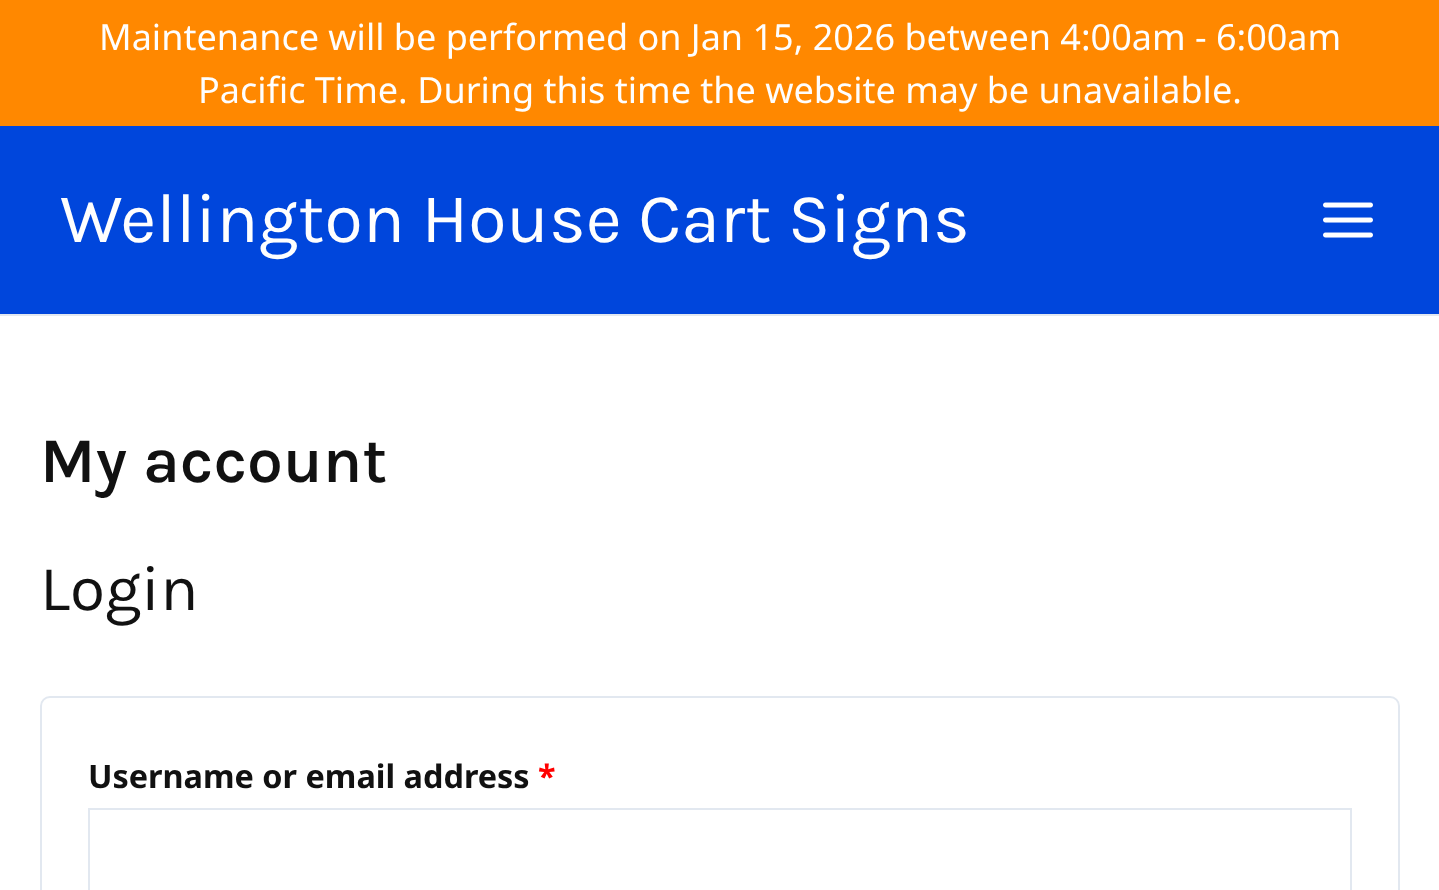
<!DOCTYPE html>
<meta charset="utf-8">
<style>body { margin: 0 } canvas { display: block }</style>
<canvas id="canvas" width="1439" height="890"></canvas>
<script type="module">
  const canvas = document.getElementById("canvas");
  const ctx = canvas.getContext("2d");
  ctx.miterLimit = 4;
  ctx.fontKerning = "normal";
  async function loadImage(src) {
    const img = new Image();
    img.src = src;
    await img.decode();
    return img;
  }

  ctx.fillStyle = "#ffffff";
  ctx.fillRect(0, 0, 1439, 890);
  ctx.fillStyle = "#ff8800";
  ctx.fillRect(0, 0, 1439, 126);
  ctx.font = "36px Noto Sans";
  ctx.fillStyle = "#fefefe";
  ctx.fillText("Maintenance will be performed on Jan 15, 2026 between 4:00am - 6:00am", 99, 50);
  ctx.fillText("Pacific Time. During this time the website may be unavailable.", 198, 103);
  ctx.fillStyle = "#0046dc";
  ctx.fillRect(0, 126, 1439, 188);
  ctx.fillStyle = "#e2e8f0";
  ctx.fillRect(0, 314, 1439, 2);
  ctx.font = "70px Karla";
  ctx.fillStyle = "#fefefe";
  ctx.fillText("Wellington House Cart Signs", 60, 242);
  ctx.drawImage(await loadImage("img1.png"), 1323, 202, 50, 36);
  ctx.font = "600 64px Karla";
  ctx.fillStyle = "#111111";
  ctx.fillText("My account", 40, 482);
  ctx.font = "64px Karla";
  ctx.fillText("Login", 40, 610);
  ctx.beginPath();
  ctx.roundRect(41, 697, 1358, 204, 9);
  ctx.strokeStyle = "#e2e8f0";
  ctx.lineWidth = 2;
  ctx.stroke();
  ctx.font = "bold 32.4px Noto Sans";
  ctx.fillText("Username or email address", 88, 788);
  ctx.fillStyle = "#ff0000";
  ctx.fillText("*", 538, 788);
  ctx.strokeRect(89, 809, 1262, 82);
</script>
